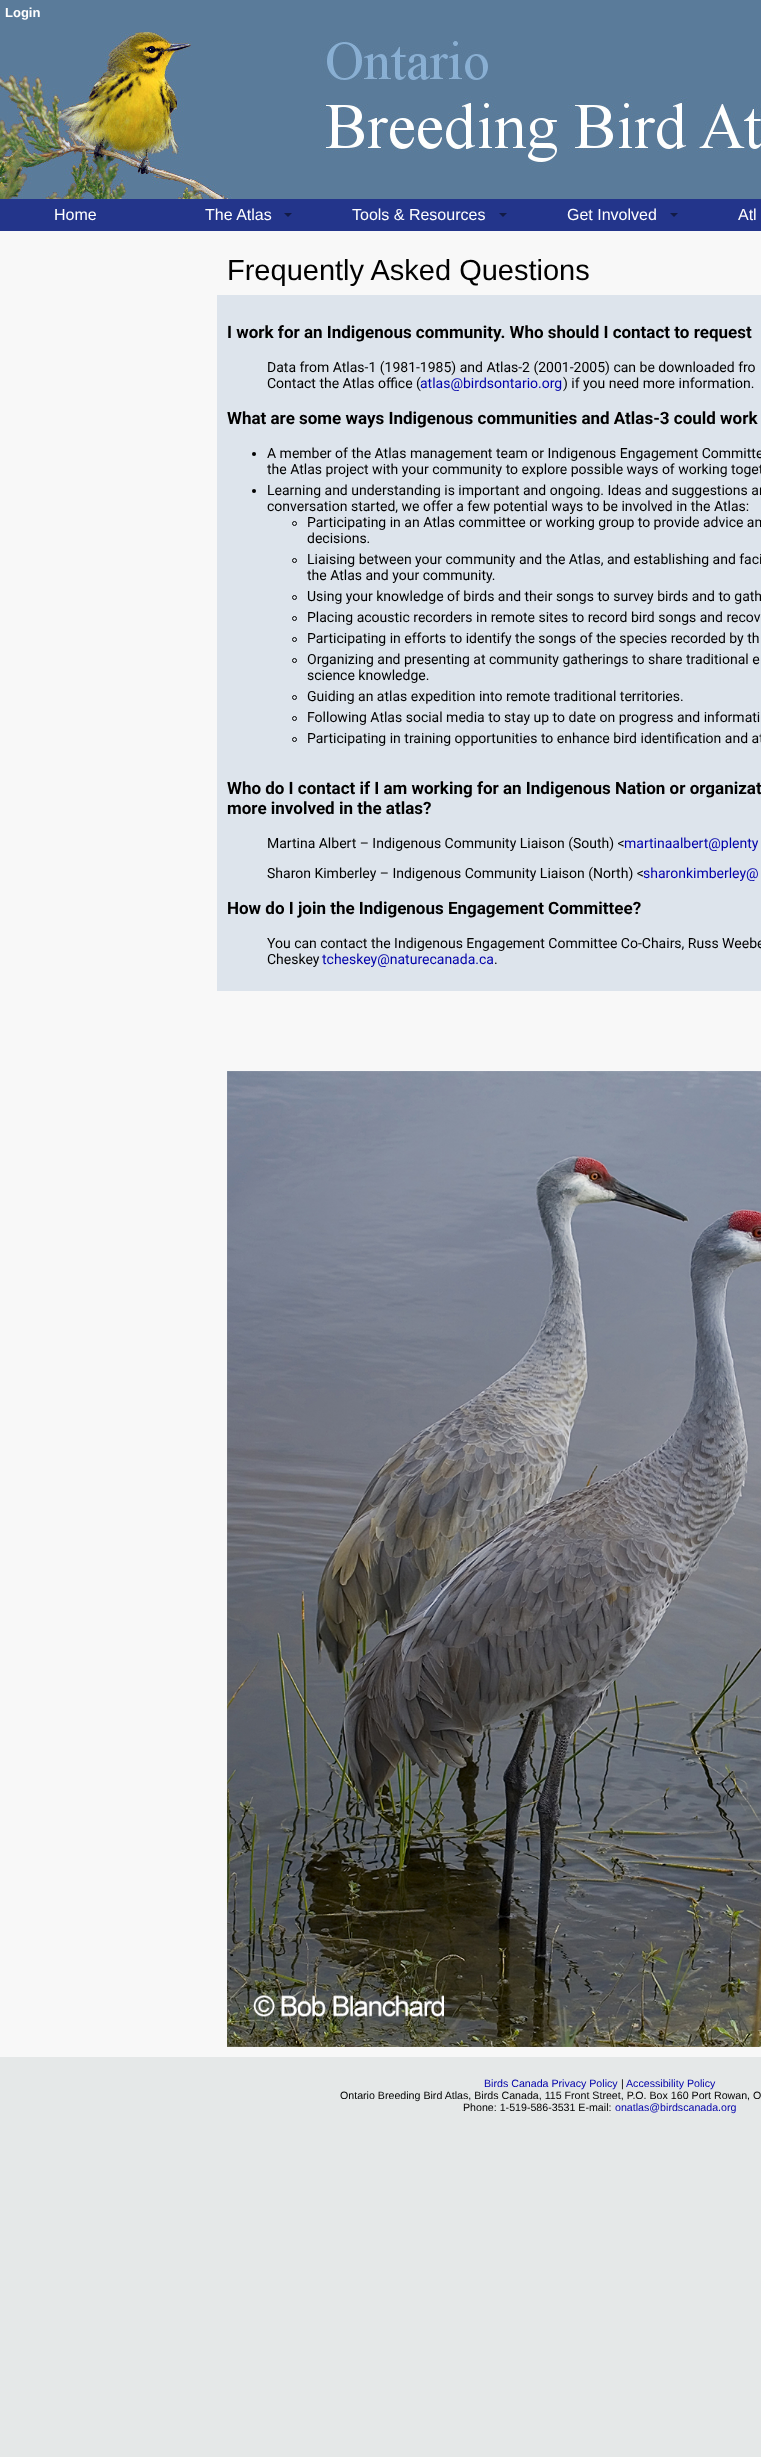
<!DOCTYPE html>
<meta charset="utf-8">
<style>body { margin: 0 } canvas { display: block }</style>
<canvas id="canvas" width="761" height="2457"></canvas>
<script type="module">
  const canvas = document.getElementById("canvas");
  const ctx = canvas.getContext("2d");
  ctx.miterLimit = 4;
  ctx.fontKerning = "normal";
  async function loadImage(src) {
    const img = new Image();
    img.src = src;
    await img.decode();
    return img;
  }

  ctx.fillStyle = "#e5e8e8";
  ctx.fillRect(0, 0, 761, 2457);
  ctx.drawImage(await loadImage("img1.png"), 0, 0, 761, 199);
  ctx.font = "bold 13px Liberation Sans";
  ctx.fillStyle = "#ffffff";
  ctx.fillText("Login", 5, 17);
  ctx.fillStyle = "#23358b";
  ctx.fillRect(0, 199, 761, 32);
  ctx.font = "16px Liberation Sans";
  ctx.fillStyle = "#ffffff";
  ctx.fillText("Home", 54, 220);
  ctx.fillText("The Atlas", 205, 220);
  ctx.fillStyle = "#121b46";
  ctx.beginPath();
  ctx.moveTo(284, 213);
  ctx.lineTo(292, 213);
  ctx.lineTo(288, 217);
  ctx.closePath();
  ctx.fill();
  ctx.fillStyle = "#ffffff";
  ctx.fillText("Tools & Resources", 352, 220);
  ctx.fillStyle = "#121b46";
  ctx.beginPath();
  ctx.moveTo(499, 213);
  ctx.lineTo(507, 213);
  ctx.lineTo(503, 217);
  ctx.closePath();
  ctx.fill();
  ctx.fillStyle = "#ffffff";
  ctx.fillText("Get Involved", 567, 220);
  ctx.fillStyle = "#121b46";
  ctx.beginPath();
  ctx.moveTo(670, 213);
  ctx.lineTo(678, 213);
  ctx.lineTo(674, 217);
  ctx.closePath();
  ctx.fill();
  ctx.fillStyle = "#ffffff";
  ctx.fillText("Atl", 738, 220);
  ctx.fillStyle = "#f8f8f8";
  ctx.fillRect(0, 231, 761, 1826);
  ctx.font = "29px Liberation Sans";
  ctx.fillStyle = "#000000";
  ctx.fillText("Frequently Asked Questions", 227, 280);
  ctx.fillStyle = "#dde4ec";
  ctx.fillRect(217, 295, 544, 696);
  ctx.font = "bold 17px Roboto";
  ctx.fillStyle = "#000000";
  ctx.fillText("I work for an Indigenous community. Who should I contact to request", 227, 338);
  ctx.font = "14px Roboto";
  ctx.fillText("Data from Atlas-1 (1981-1985) and Atlas-2 (2001-2005) can be downloaded fro", 267, 372);
  ctx.fillText("Contact the Atlas office (", 267, 388);
  ctx.fillStyle = "#0000aa";
  ctx.fillText("atlas@birdsontario.org", 420, 388);
  ctx.fillStyle = "#000000";
  ctx.fillText(") if you need more information.", 563, 388);
  ctx.font = "bold 17px Roboto";
  ctx.fillText("What are some ways Indigenous communities and Atlas-3 could work", 227, 424);
  ctx.beginPath();
  ctx.arc(254, 454, 2, 0, Math.PI * 2);
  ctx.fill();
  ctx.font = "14px Roboto";
  ctx.fillText("A member of the Atlas management team or Indigenous Engagement Committe", 267, 458);
  ctx.fillText("the Atlas project with your community to explore possible ways of working toget", 267, 474);
  ctx.beginPath();
  ctx.arc(254, 491, 2, 0, Math.PI * 2);
  ctx.fill();
  ctx.fillText("Learning and understanding is important and ongoing. Ideas and suggestions ar", 267, 495);
  ctx.fillText("conversation started, we offer a few potential ways to be involved in the Atlas:", 267, 511);
  ctx.beginPath();
  ctx.arc(294.5, 523.5, 2, 0, Math.PI * 2);
  ctx.strokeStyle = "#000000";
  ctx.stroke();
  ctx.fillText("Participating in an Atlas committee or working group to provide advice an", 307, 527);
  ctx.fillText("decisions.", 307, 543);
  ctx.beginPath();
  ctx.arc(294.5, 560.5, 2, 0, Math.PI * 2);
  ctx.stroke();
  ctx.fillText("Liaising between your community and the Atlas, and establishing and faci", 307, 564);
  ctx.fillText("the Atlas and your community.", 307, 580);
  ctx.beginPath();
  ctx.arc(294.5, 597.5, 2, 0, Math.PI * 2);
  ctx.stroke();
  ctx.fillText("Using your knowledge of birds and their songs to survey birds and to gath", 307, 601);
  ctx.beginPath();
  ctx.arc(294.5, 618.5, 2, 0, Math.PI * 2);
  ctx.stroke();
  ctx.fillText("Placing acoustic recorders in remote sites to record bird songs and recov", 307, 622);
  ctx.beginPath();
  ctx.arc(294.5, 639.5, 2, 0, Math.PI * 2);
  ctx.stroke();
  ctx.fillText("Participating in efforts to identify the songs of the species recorded by th", 307, 643);
  ctx.beginPath();
  ctx.arc(294.5, 660.5, 2, 0, Math.PI * 2);
  ctx.stroke();
  ctx.fillText("Organizing and presenting at community gatherings to share traditional e", 307, 664);
  ctx.fillText("science knowledge.", 307, 680);
  ctx.beginPath();
  ctx.arc(294.5, 697.5, 2, 0, Math.PI * 2);
  ctx.stroke();
  ctx.fillText("Guiding an atlas expedition into remote traditional territories.", 307, 701);
  ctx.beginPath();
  ctx.arc(294.5, 718.5, 2, 0, Math.PI * 2);
  ctx.stroke();
  ctx.fillText("Following Atlas social media to stay up to date on progress and informati", 307, 722);
  ctx.beginPath();
  ctx.arc(294.5, 739.5, 2, 0, Math.PI * 2);
  ctx.stroke();
  ctx.fillText("Participating in training opportunities to enhance bird identification and at", 307, 743);
  ctx.font = "bold 17px Roboto";
  ctx.fillText("Who do I contact if I am working for an Indigenous Nation or organizat", 227, 794);
  ctx.fillText("more involved in the atlas?", 227, 814);
  ctx.font = "14px Roboto";
  ctx.fillText("Martina Albert – Indigenous Community Liaison (South) <", 267, 848);
  ctx.fillStyle = "#0000aa";
  ctx.fillText("martinaalbert@plenty", 624, 848);
  ctx.fillStyle = "#000000";
  ctx.fillText("Sharon Kimberley – Indigenous Community Liaison (North) <", 267, 878);
  ctx.fillStyle = "#0000aa";
  ctx.fillText("sharonkimberley@", 643, 878);
  ctx.font = "bold 17px Roboto";
  ctx.fillStyle = "#000000";
  ctx.fillText("How do I join the Indigenous Engagement Committee?", 227, 914);
  ctx.font = "14px Roboto";
  ctx.fillText("You can contact the Indigenous Engagement Committee Co-Chairs, Russ Weebe", 267, 948);
  ctx.fillText("Cheskey", 267, 964);
  ctx.fillStyle = "#0000aa";
  ctx.fillText("tcheskey@naturecanada.ca", 322, 964);
  ctx.fillStyle = "#000000";
  ctx.fillText(".", 494, 964);
  ctx.drawImage(await loadImage("img2.png"), 227, 1071, 534, 976);
  ctx.font = "10.65px Liberation Sans";
  ctx.fillStyle = "#0000aa";
  ctx.fillText("Birds Canada Privacy Policy", 484, 2087);
  ctx.fillStyle = "#000000";
  ctx.fillText("|", 621, 2087);
  ctx.fillStyle = "#0000aa";
  ctx.fillText("Accessibility Policy", 626, 2087);
  ctx.fillStyle = "#000000";
  ctx.fillText("Ontario Breeding Bird Atlas, Birds Canada, 115 Front Street, P.O. Box 160 Port Rowan, O", 340, 2099);
  ctx.fillText("Phone: 1-519-586-3531 E-mail:", 463, 2111);
  ctx.fillStyle = "#0000aa";
  ctx.fillText("onatlas@birdscanada.org", 615, 2111);
</script>
